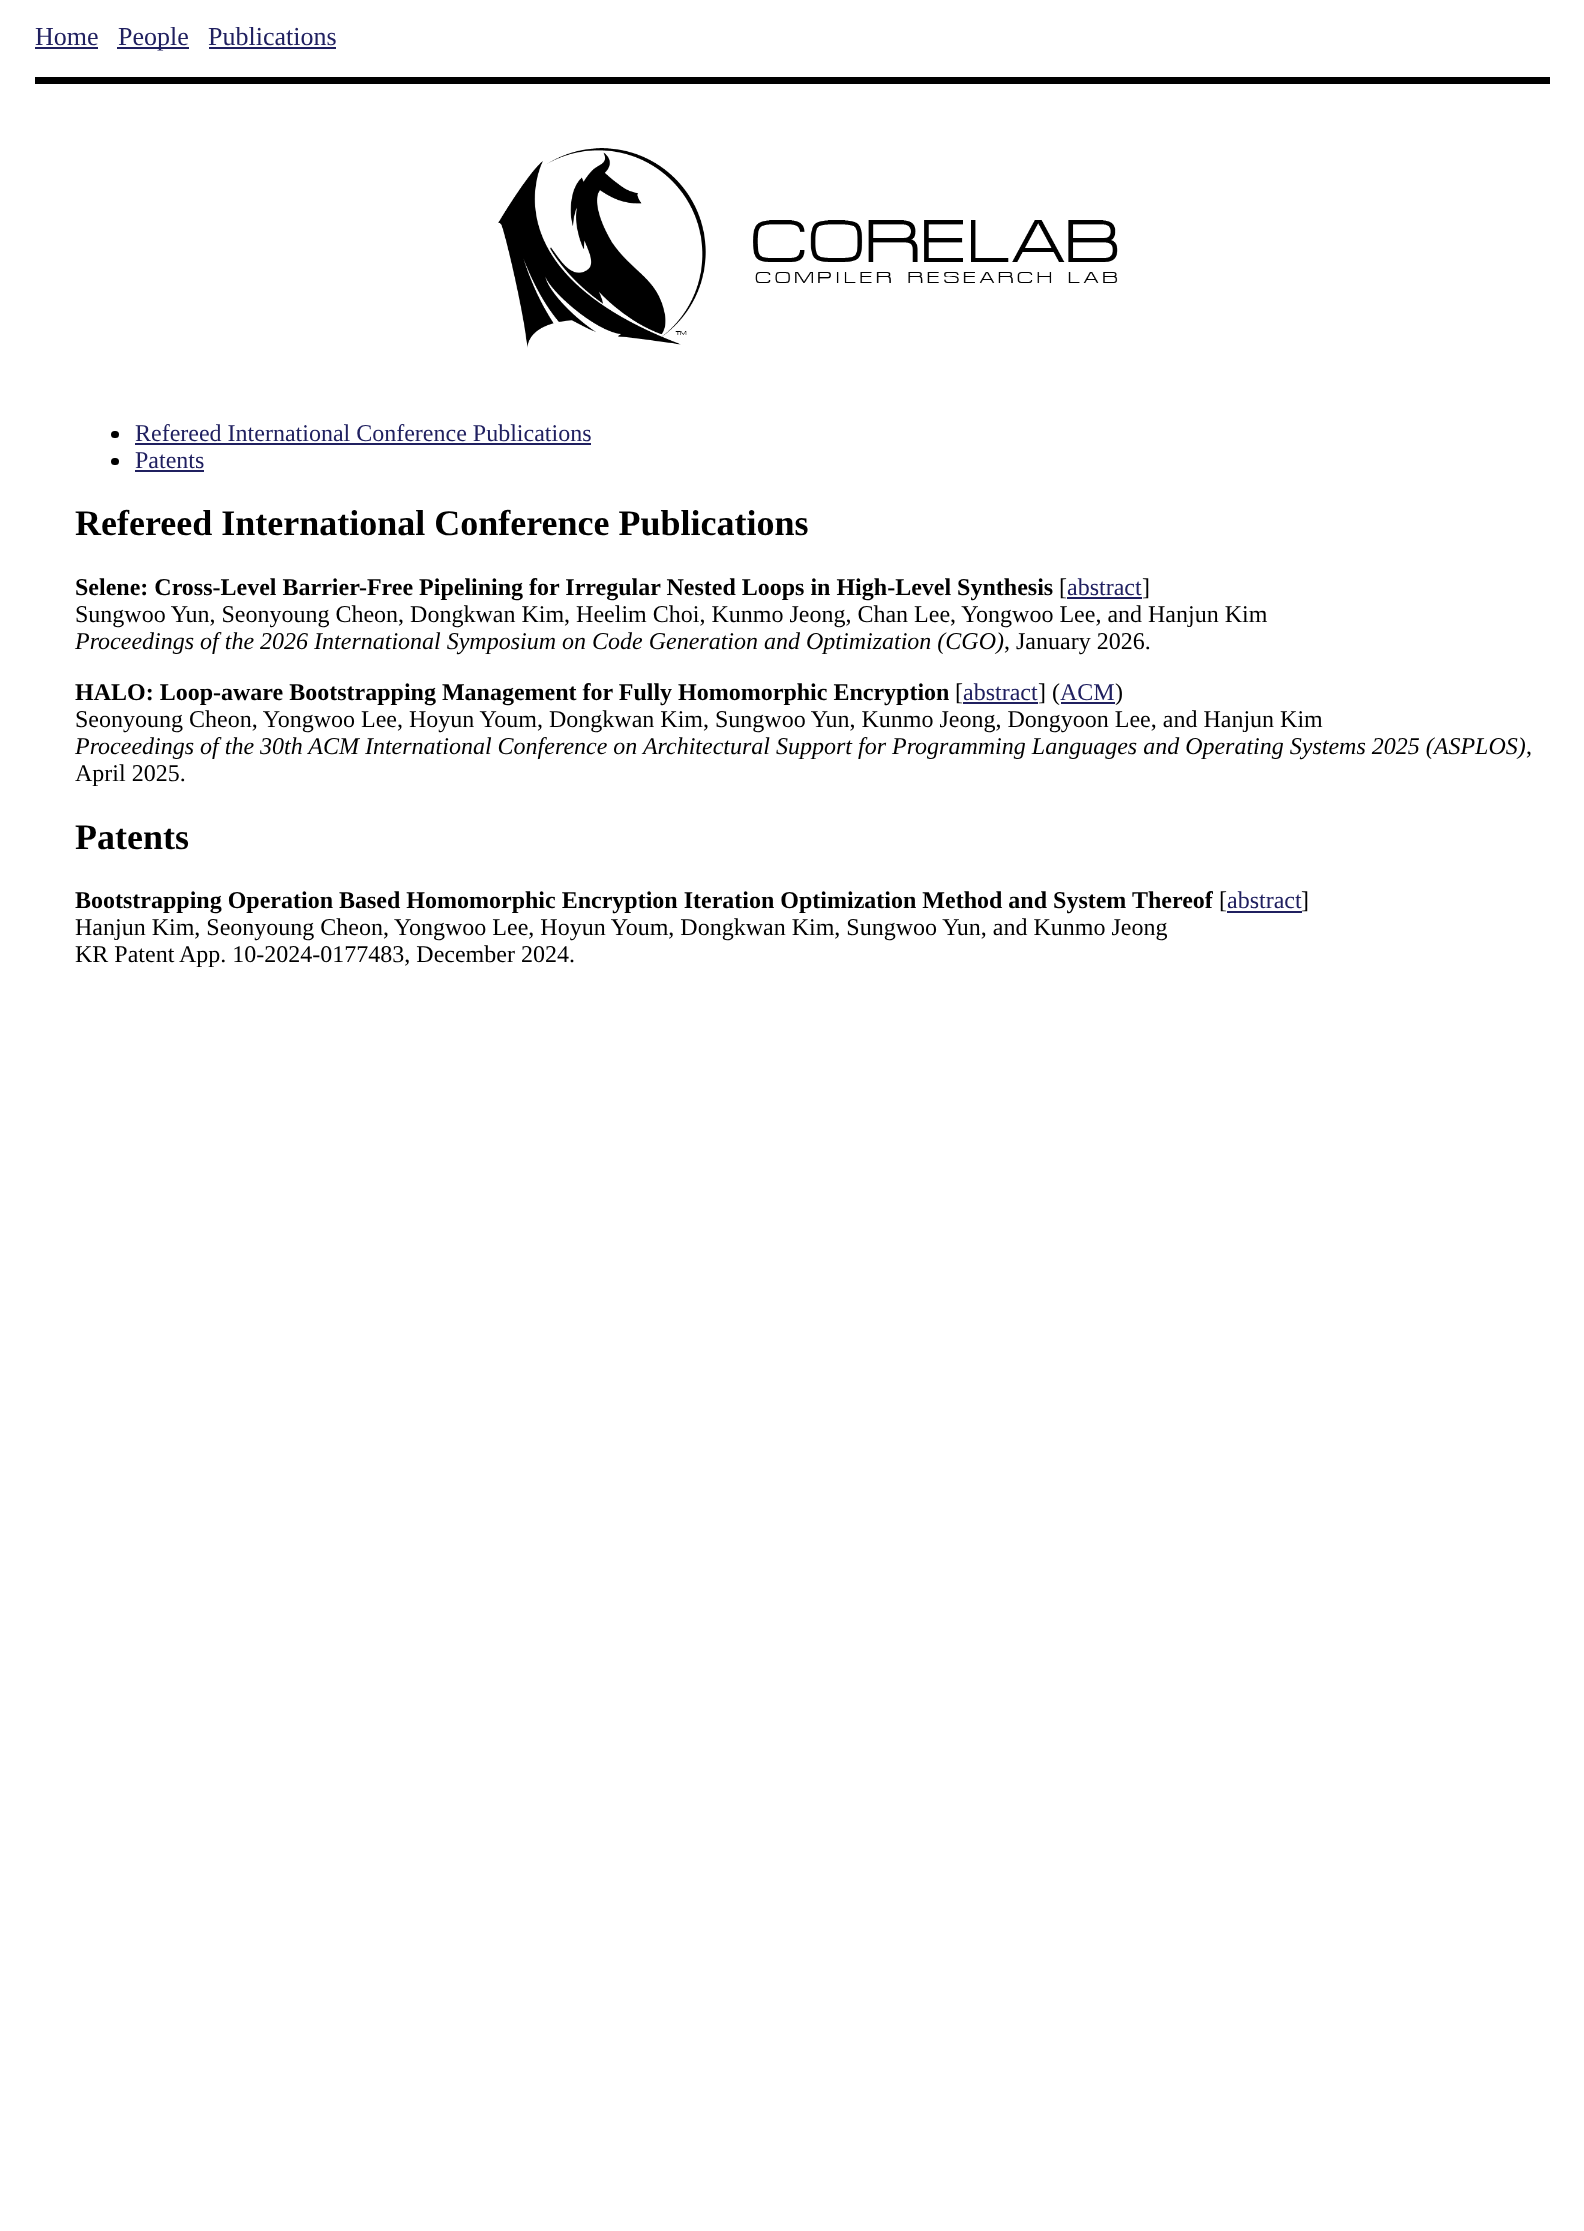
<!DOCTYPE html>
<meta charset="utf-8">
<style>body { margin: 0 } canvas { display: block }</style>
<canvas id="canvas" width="1584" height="2231"></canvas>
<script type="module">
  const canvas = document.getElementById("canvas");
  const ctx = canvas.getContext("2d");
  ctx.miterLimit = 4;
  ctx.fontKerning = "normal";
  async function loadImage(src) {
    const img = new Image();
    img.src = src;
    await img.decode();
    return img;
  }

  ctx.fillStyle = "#ffffff";
  ctx.fillRect(0, 0, 1584, 2231);
  ctx.font = "26px Liberation Serif";
  ctx.fillStyle = "#202060";
  ctx.fillText("Home", 35, 45);
  ctx.fillRect(35, 47, 63, 2);
  ctx.fillRect(117, 47, 72, 2);
  ctx.fillText("People", 118, 45);
  ctx.fillText("Publications", 208, 45);
  ctx.fillRect(209, 47, 127, 2);
  ctx.fillStyle = "#000000";
  ctx.fillRect(35, 77, 1515, 7);
  ctx.drawImage(await loadImage("img1.png"), 498, 148, 620, 200);
  ctx.beginPath();
  ctx.roundRect(111, 431, 8, 7, 3.5);
  ctx.fill();
  ctx.font = "24px Liberation Serif";
  ctx.fillStyle = "#202060";
  ctx.fillText("Refereed International Conference Publications", 135, 441);
  ctx.fillRect(135, 443, 456, 2);
  ctx.fillStyle = "#000000";
  ctx.beginPath();
  ctx.roundRect(111, 458, 8, 7, 3.5);
  ctx.fill();
  ctx.fillStyle = "#202060";
  ctx.fillText("Patents", 135, 468);
  ctx.fillRect(135, 470, 69, 2);
  ctx.font = "bold 36px Liberation Serif";
  ctx.fillStyle = "#000000";
  ctx.fillText("Refereed International Conference Publications", 75, 535);
  ctx.font = "bold 24px Liberation Serif";
  ctx.fillText("Selene: Cross-Level Barrier-Free Pipelining for Irregular Nested Loops in High-Level Synthesis", 75, 595);
  ctx.font = "24px Liberation Serif";
  ctx.fillText("[", 1059, 595);
  ctx.fillStyle = "#202060";
  ctx.fillText("abstract", 1067, 595);
  ctx.fillRect(1067, 597, 75, 2);
  ctx.fillStyle = "#000000";
  ctx.fillText("]", 1142, 595);
  ctx.fillText("Sungwoo Yun, Seonyoung Cheon, Dongkwan Kim, Heelim Choi, Kunmo Jeong, Chan Lee, Yongwoo Lee, and Hanjun Kim", 75, 622);
  ctx.font = "italic 24px Liberation Serif";
  ctx.fillText("Proceedings of the 2026 International Symposium on Code Generation and Optimization (CGO)", 75, 649);
  ctx.font = "24px Liberation Serif";
  ctx.fillText(", January 2026.", 1004, 649);
  ctx.font = "bold 24px Liberation Serif";
  ctx.fillText("HALO: Loop-aware Bootstrapping Management for Fully Homomorphic Encryption", 75, 700);
  ctx.font = "24px Liberation Serif";
  ctx.fillText("[", 955, 700);
  ctx.fillStyle = "#202060";
  ctx.fillText("abstract", 963, 700);
  ctx.fillRect(963, 702, 75, 2);
  ctx.fillStyle = "#000000";
  ctx.fillText("] (", 1038, 700);
  ctx.fillStyle = "#202060";
  ctx.fillText("ACM", 1060, 700);
  ctx.fillRect(1061, 702, 54, 2);
  ctx.fillStyle = "#000000";
  ctx.fillText(")", 1115, 700);
  ctx.fillText("Seonyoung Cheon, Yongwoo Lee, Hoyun Youm, Dongkwan Kim, Sungwoo Yun, Kunmo Jeong, Dongyoon Lee, and Hanjun Kim", 75, 727);
  ctx.font = "italic 24px Liberation Serif";
  ctx.fillText("Proceedings of the 30th ACM International Conference on Architectural Support for Programming Languages and Operating Systems 2025 (ASPLOS)", 75, 754);
  ctx.font = "24px Liberation Serif";
  ctx.fillText(",", 1526, 754);
  ctx.fillText("April 2025.", 75, 781);
  ctx.font = "bold 36px Liberation Serif";
  ctx.fillText("Patents", 75, 849);
  ctx.font = "bold 24px Liberation Serif";
  ctx.fillText("Bootstrapping Operation Based Homomorphic Encryption Iteration Optimization Method and System Thereof", 75, 908);
  ctx.font = "24px Liberation Serif";
  ctx.fillText("[", 1219, 908);
  ctx.fillStyle = "#202060";
  ctx.fillText("abstract", 1227, 908);
  ctx.fillRect(1227, 911, 75, 2);
  ctx.fillStyle = "#000000";
  ctx.fillText("]", 1301, 908);
  ctx.fillText("Hanjun Kim, Seonyoung Cheon, Yongwoo Lee, Hoyun Youm, Dongkwan Kim, Sungwoo Yun, and Kunmo Jeong", 75, 935);
  ctx.fillText("KR Patent App. 10-2024-0177483, December 2024.", 75, 962);
</script>
